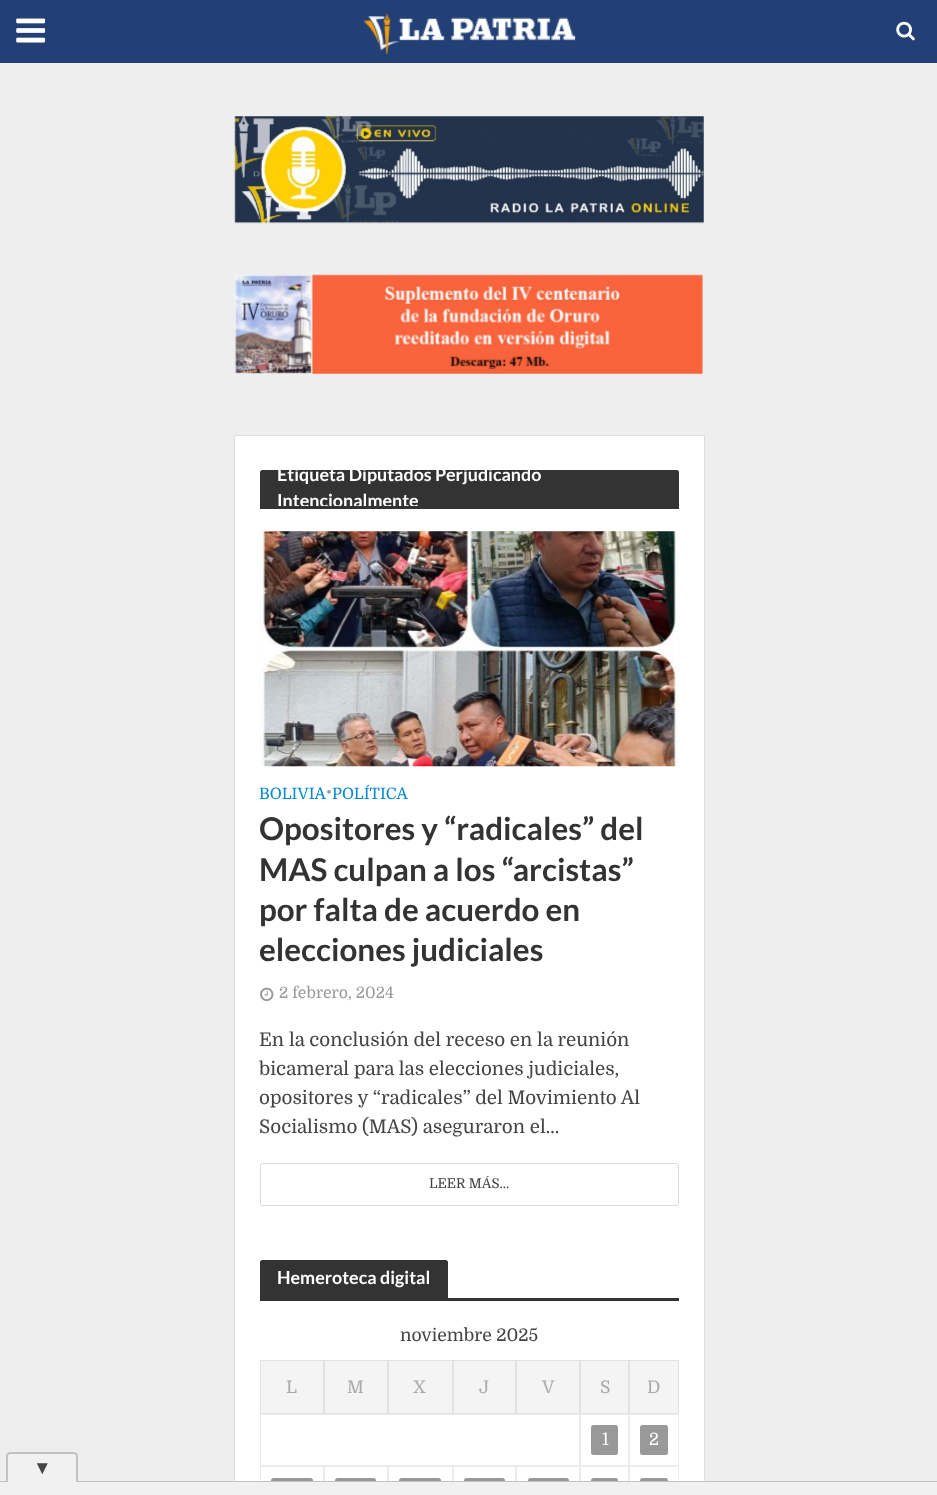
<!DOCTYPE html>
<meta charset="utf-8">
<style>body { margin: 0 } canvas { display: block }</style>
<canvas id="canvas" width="937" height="1495"></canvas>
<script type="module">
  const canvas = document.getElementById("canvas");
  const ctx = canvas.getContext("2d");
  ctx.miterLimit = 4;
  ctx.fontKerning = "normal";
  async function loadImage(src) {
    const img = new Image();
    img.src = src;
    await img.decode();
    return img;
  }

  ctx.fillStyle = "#eeeeee";
  ctx.fillRect(0, 0, 937, 1495);
  ctx.fillStyle = "#224075";
  ctx.fillRect(0, 0, 937, 63);
  ctx.drawImage(await loadImage("img1.png"), 16, 18, 30, 25);
  ctx.drawImage(await loadImage("img2.png"), 363, 13, 213, 41);
  ctx.drawImage(await loadImage("img3.png"), 896, 21, 19, 20);
  ctx.drawImage(await loadImage("img4.png"), 234, 116, 470, 108);
  ctx.drawImage(await loadImage("img5.png"), 234, 274, 469, 100);
  ctx.strokeStyle = "#dddddd";
  ctx.strokeRect(234.5, 435.5, 470, 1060);
  ctx.fillStyle = "#ffffff";
  ctx.fillRect(235, 436, 469, 1045);
  ctx.fillStyle = "#333333";
  ctx.beginPath();
  ctx.roundRect(260, 470, 419, 36, [2.5, 2.5, 0, 0]);
  ctx.fill();
  ctx.font = "bold 17.9px Lato";
  ctx.fillStyle = "#ffffff";
  ctx.fillText("Etiqueta Diputados Perjudicando", 277, 481);
  ctx.fillText("Intencionalmente", 277, 507);
  ctx.fillStyle = "#333333";
  ctx.fillRect(260, 506, 419, 3);
  ctx.fillStyle = "#f3f3f3";
  ctx.fillRect(260, 531, 419, 235);
  ctx.drawImage(await loadImage("img6.png"), 260, 531, 419, 236);
  ctx.font = "15.75px Domine";
  ctx.fillStyle = "#0288d1";
  ctx.fillText("BOLIVIA", 259, 799);
  ctx.font = "15px Domine";
  ctx.fillStyle = "#999999";
  ctx.fillText("•", 326, 797);
  ctx.font = "15.75px Domine";
  ctx.fillStyle = "#0288d1";
  ctx.fillText("POLÍTICA", 332, 799);
  ctx.font = "bold 31.4px Lato";
  ctx.fillStyle = "#333333";
  ctx.fillText("Opositores y “radicales” del", 259, 840);
  ctx.fillText("MAS culpan a los “arcistas”", 259, 881);
  ctx.fillText("por falta de acuerdo en", 259, 921);
  ctx.fillText("elecciones judiciales", 259, 961);
  ctx.drawImage(await loadImage("img7.png"), 260, 987, 14, 15);
  ctx.font = "15.75px Domine";
  ctx.fillStyle = "#999999";
  ctx.fillText("2 febrero, 2024", 279, 998);
  ctx.font = "18.75px Domine";
  ctx.fillStyle = "#444444";
  ctx.fillText("En la conclusión del receso en la reunión", 259, 1046);
  ctx.fillText("bicameral para las elecciones judiciales,", 259, 1075);
  ctx.fillText("opositores y “radicales” del Movimiento Al", 259, 1104);
  ctx.fillText("Socialismo (MAS) aseguraron el...", 259, 1133);
  ctx.beginPath();
  ctx.roundRect(260.5, 1163.5, 418, 42, 2);
  ctx.strokeStyle = "#dadada";
  ctx.stroke();
  ctx.font = "13.5px Domine";
  ctx.fillText("LEER MÁS...", 429, 1188);
  ctx.fillStyle = "#333333";
  ctx.beginPath();
  ctx.roundRect(260, 1260, 188, 38, [2.5, 2.5, 0, 0]);
  ctx.fill();
  ctx.font = "bold 17.9px Lato";
  ctx.fillStyle = "#ffffff";
  ctx.fillText("Hemeroteca digital", 277, 1284);
  ctx.fillStyle = "#333333";
  ctx.fillRect(260, 1298, 419, 3);
  ctx.font = "17.5px Domine";
  ctx.fillStyle = "#444444";
  ctx.fillText("noviembre 2025", 400, 1341);
  ctx.fillStyle = "#f4f4f4";
  ctx.fillRect(261, 1361, 417, 52);
  ctx.strokeStyle = "#e2e2e2";
  ctx.strokeRect(260.5, 1360.5, 63, 53);
  ctx.fillStyle = "#aaaaaa";
  ctx.fillText("L", 286, 1393);
  ctx.strokeRect(324.5, 1360.5, 63, 53);
  ctx.fillText("M", 347, 1393);
  ctx.strokeRect(388.5, 1360.5, 64, 53);
  ctx.fillText("X", 413, 1393);
  ctx.strokeRect(453.5, 1360.5, 62, 53);
  ctx.fillText("J", 479, 1393);
  ctx.strokeRect(516.5, 1360.5, 63, 53);
  ctx.fillText("V", 542, 1393);
  ctx.strokeRect(580.5, 1360.5, 48, 53);
  ctx.fillText("S", 600, 1393);
  ctx.strokeRect(629.5, 1360.5, 49, 53);
  ctx.fillText("D", 647, 1393);
  ctx.strokeStyle = "#ececec";
  ctx.strokeRect(260.5, 1414.5, 319, 51);
  ctx.strokeRect(580.5, 1414.5, 48, 51);
  ctx.fillStyle = "#999999";
  ctx.beginPath();
  ctx.roundRect(591, 1425, 27, 30, 2.5);
  ctx.fill();
  ctx.font = "17px Domine";
  ctx.fillStyle = "#ffffff";
  ctx.fillText("1", 602, 1445);
  ctx.strokeRect(629.5, 1414.5, 49, 51);
  ctx.fillStyle = "#999999";
  ctx.beginPath();
  ctx.roundRect(640, 1425, 28, 30, 2.5);
  ctx.fill();
  ctx.fillStyle = "#ffffff";
  ctx.fillText("2", 649, 1445);
  ctx.strokeRect(260.5, 1466.5, 63, 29);
  ctx.fillStyle = "#999999";
  ctx.beginPath();
  ctx.roundRect(271, 1478, 42, 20, 2.5);
  ctx.fill();
  ctx.strokeRect(324.5, 1466.5, 63, 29);
  ctx.beginPath();
  ctx.roundRect(335, 1478, 41, 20, 2.5);
  ctx.fill();
  ctx.strokeRect(388.5, 1466.5, 64, 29);
  ctx.beginPath();
  ctx.roundRect(399, 1478, 42, 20, 2.5);
  ctx.fill();
  ctx.strokeRect(453.5, 1466.5, 62, 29);
  ctx.beginPath();
  ctx.roundRect(464, 1478, 41, 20, 2.5);
  ctx.fill();
  ctx.strokeRect(516.5, 1466.5, 63, 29);
  ctx.beginPath();
  ctx.roundRect(528, 1478, 41, 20, 2.5);
  ctx.fill();
  ctx.strokeRect(580.5, 1466.5, 48, 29);
  ctx.beginPath();
  ctx.roundRect(591, 1478, 27, 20, 2.5);
  ctx.fill();
  ctx.strokeRect(629.5, 1466.5, 49, 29);
  ctx.beginPath();
  ctx.roundRect(640, 1478, 28, 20, 2.5);
  ctx.fill();
  ctx.fillStyle = "#f1f1f1";
  ctx.fillRect(0, 1482, 937, 13);
  ctx.fillStyle = "#c2c2c2";
  ctx.fillRect(0, 1481, 937, 1);
  ctx.fillStyle = "#f1f1f1";
  ctx.beginPath();
  ctx.roundRect(6, 1453, 72, 30, [4, 4, 0, 0]);
  ctx.fill();
  ctx.fillStyle = "#c2c2c2";
  ctx.beginPath();
  ctx.moveTo(10, 1452);
  ctx.lineTo(74, 1452);
  ctx.bezierCurveTo(76, 1452, 78, 1454, 78, 1456);
  ctx.lineTo(78, 1482);
  ctx.lineTo(6, 1482);
  ctx.lineTo(6, 1456);
  ctx.bezierCurveTo(6, 1454, 8, 1452, 10, 1452);
  ctx.closePath();
  ctx.moveTo(10, 1454);
  ctx.lineTo(74, 1454);
  ctx.bezierCurveTo(75, 1454, 76, 1455, 76, 1456);
  ctx.lineTo(76, 1482);
  ctx.lineTo(8, 1482);
  ctx.lineTo(8, 1456);
  ctx.bezierCurveTo(8, 1455, 9, 1454, 10, 1454);
  ctx.closePath();
  ctx.fill("evenodd");
  ctx.font = "18.75px Liberation Serif";
  ctx.fillStyle = "#444444";
  ctx.fillText("▼", 33, 1474);
</script>
